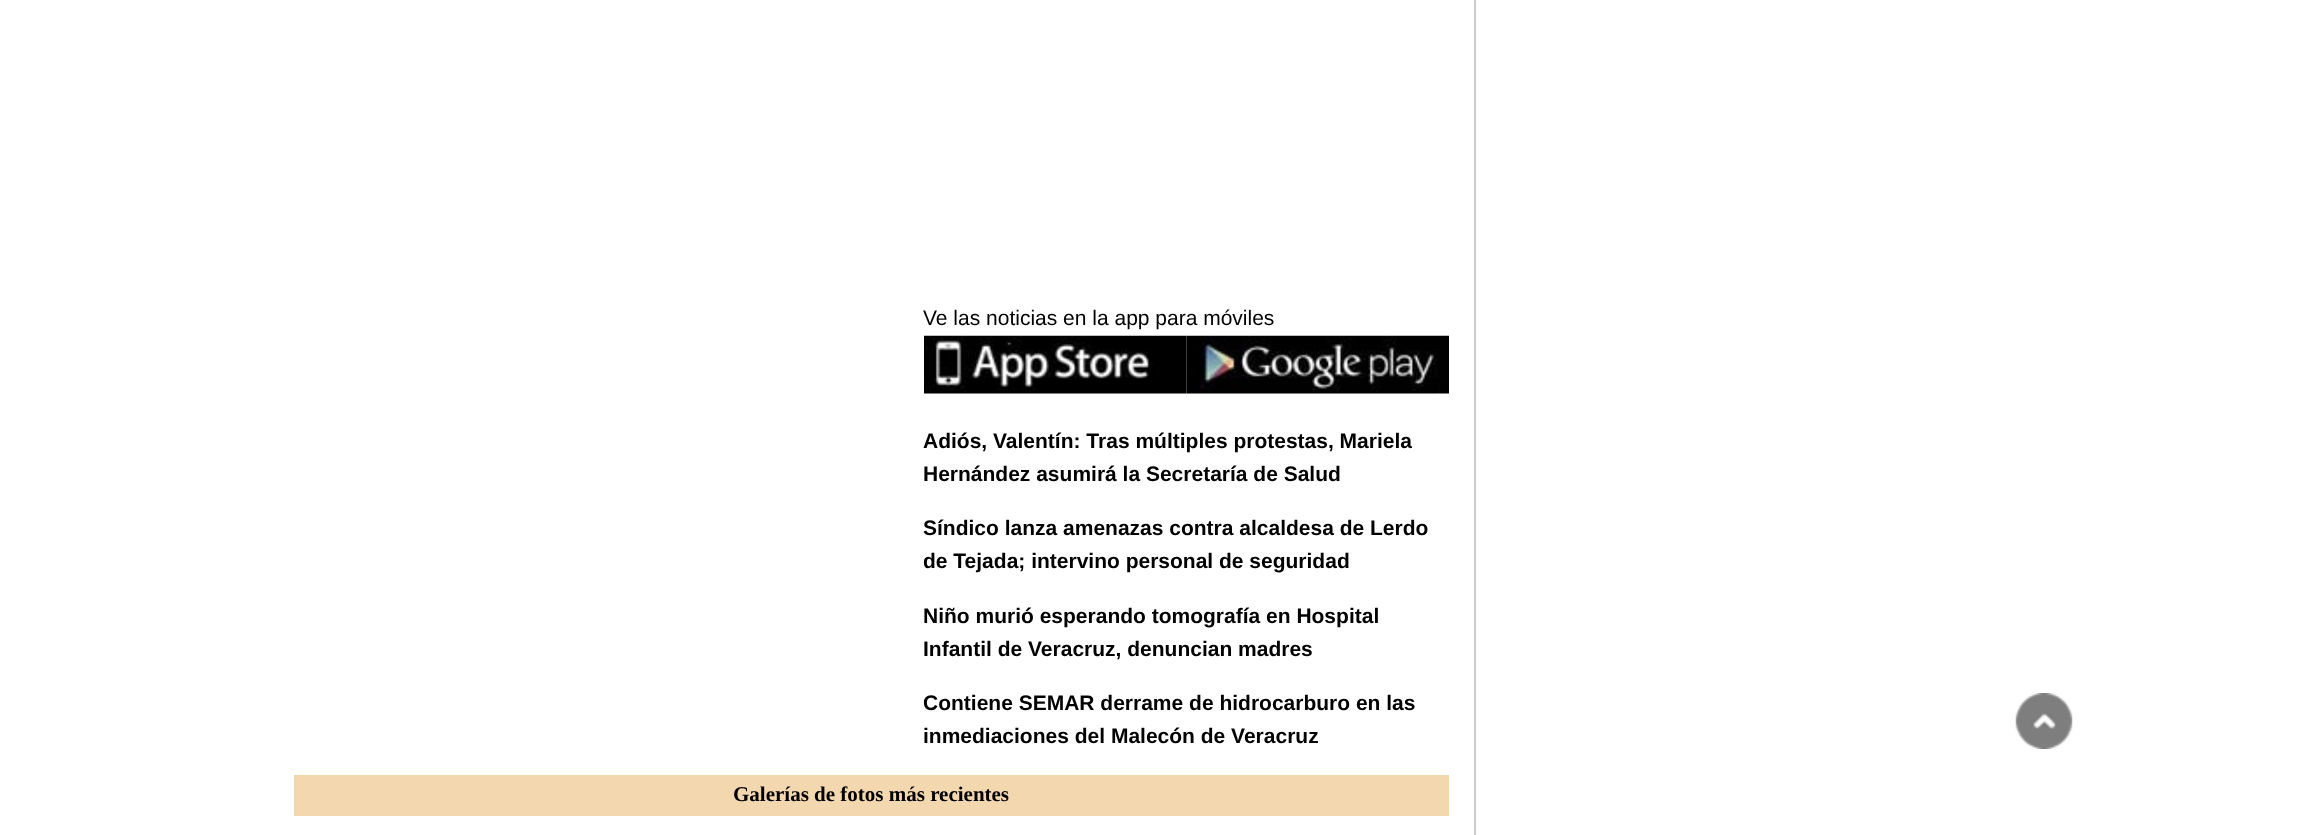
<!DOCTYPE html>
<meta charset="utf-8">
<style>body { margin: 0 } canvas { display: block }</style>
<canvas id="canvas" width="2301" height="835"></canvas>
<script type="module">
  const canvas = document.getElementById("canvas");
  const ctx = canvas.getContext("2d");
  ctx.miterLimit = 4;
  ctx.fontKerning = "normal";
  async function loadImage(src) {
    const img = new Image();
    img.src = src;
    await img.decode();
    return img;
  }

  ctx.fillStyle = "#ffffff";
  ctx.fillRect(0, 0, 2301, 835);
  ctx.fillStyle = "#cccccc";
  ctx.fillRect(1474, 0, 2, 835);
  ctx.font = "21px Liberation Sans";
  ctx.fillStyle = "#000000";
  ctx.fillText("Ve las noticias en la app para móviles", 923, 325);
  ctx.drawImage(await loadImage("img1.png"), 924, 335, 263, 59);
  ctx.drawImage(await loadImage("img2.png"), 1186, 335, 263, 59);
  ctx.font = "bold 21px Liberation Sans";
  ctx.fillText("Adiós, Valentín: Tras múltiples protestas, Mariela", 923, 448);
  ctx.fillText("Hernández asumirá la Secretaría de Salud", 923, 481);
  ctx.fillText("Síndico lanza amenazas contra alcaldesa de Lerdo", 923, 535);
  ctx.fillText("de Tejada; intervino personal de seguridad", 923, 568);
  ctx.fillText("Niño murió esperando tomografía en Hospital", 923, 623);
  ctx.fillText("Infantil de Veracruz, denuncian madres", 923, 656);
  ctx.fillText("Contiene SEMAR derrame de hidrocarburo en las", 923, 710);
  ctx.fillText("inmediaciones del Malecón de Veracruz", 923, 743);
  ctx.fillStyle = "#f3d7af";
  ctx.fillRect(294, 775, 1155, 41);
  ctx.font = "bold 21px Liberation Serif";
  ctx.fillStyle = "#000000";
  ctx.fillText("Galerías de fotos más recientes", 733, 801);
  ctx.drawImage(await loadImage("img3.png"), 2015, 693, 58, 56);
</script>
